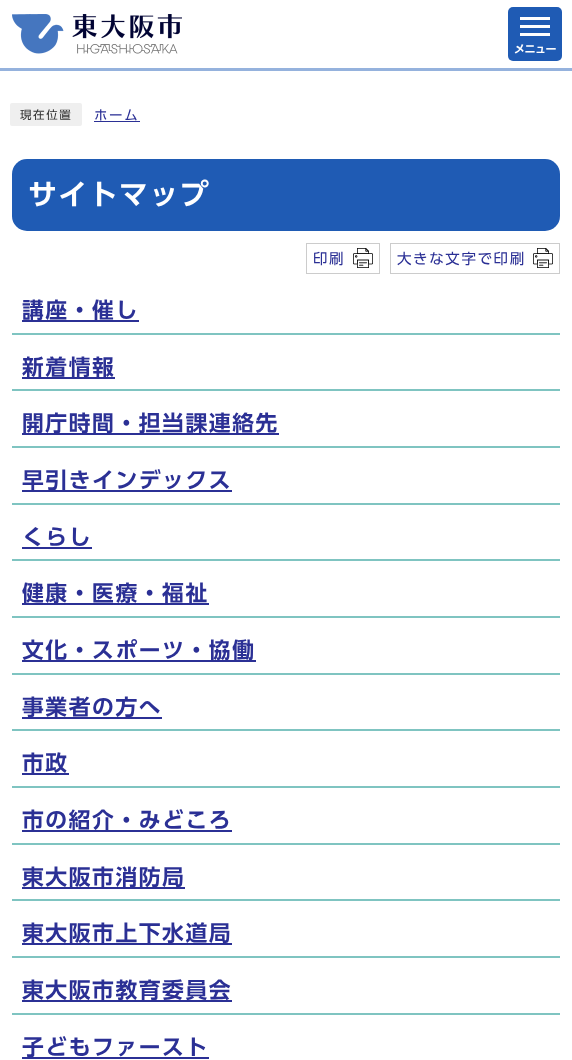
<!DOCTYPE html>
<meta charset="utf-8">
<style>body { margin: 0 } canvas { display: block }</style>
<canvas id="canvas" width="572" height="1060"></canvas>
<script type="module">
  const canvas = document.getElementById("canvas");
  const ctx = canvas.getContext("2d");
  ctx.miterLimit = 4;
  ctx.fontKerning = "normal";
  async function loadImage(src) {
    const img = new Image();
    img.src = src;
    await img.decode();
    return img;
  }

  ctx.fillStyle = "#ffffff";
  ctx.fillRect(0, 0, 572, 1060);
  ctx.fillStyle = "#95b2dd";
  ctx.fillRect(0, 68, 572, 3);
  ctx.drawImage(await loadImage("img1.png"), 12, 14, 170, 40);
  ctx.fillStyle = "#1f5bb4";
  ctx.beginPath();
  ctx.roundRect(508, 7, 54, 54, 5);
  ctx.fill();
  ctx.fillStyle = "#ffffff";
  ctx.fillRect(520, 17, 30, 3);
  ctx.fillRect(520, 25, 30, 3);
  ctx.fillRect(520, 33, 30, 3);
  ctx.letterSpacing = "-0.5px";
  ctx.font = "600 11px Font";
  ctx.fillText("メニュー", 514, 53);
  ctx.fillStyle = "#efefef";
  ctx.beginPath();
  ctx.roundRect(10, 103, 72, 23, 2);
  ctx.fill();
  ctx.letterSpacing = "1.6px";
  ctx.font = "11.5px Font";
  ctx.fillStyle = "#333333";
  ctx.fillText("現在位置", 20, 119);
  ctx.font = "13.5px Font";
  ctx.fillStyle = "#2b3095";
  ctx.fillText("ホーム", 94, 120);
  ctx.fillRect(94, 121, 46, 1);
  ctx.fillStyle = "#1f5bb4";
  ctx.beginPath();
  ctx.roundRect(12, 159, 548, 72, 15);
  ctx.fill();
  ctx.font = "600 28.75px Font";
  ctx.fillStyle = "#ffffff";
  ctx.fillText("サイトマップ", 28, 205);
  ctx.drawImage(await loadImage("img2.png"), 353, 248, 20, 20);
  ctx.strokeStyle = "#cccccc";
  ctx.strokeRect(306.5, 243.5, 73, 30);
  ctx.font = "14.5px Font";
  ctx.fillStyle = "#2b3095";
  ctx.fillText("印刷", 313, 264);
  ctx.drawImage(await loadImage("img2.png"), 533, 248, 20, 20);
  ctx.strokeRect(390.5, 243.5, 169, 30);
  ctx.fillText("大きな文字で印刷", 397, 264);
  ctx.fillStyle = "#7fc4c1";
  ctx.fillRect(12, 333, 548, 2);
  ctx.font = "600 21.75px Font";
  ctx.fillStyle = "#2b3095";
  ctx.fillText("講座・催し", 22, 318);
  ctx.fillRect(22, 320, 117, 2);
  ctx.fillStyle = "#7fc4c1";
  ctx.fillRect(12, 389, 548, 2);
  ctx.fillStyle = "#2b3095";
  ctx.fillText("新着情報", 22, 375);
  ctx.fillRect(22, 377, 93, 2);
  ctx.fillStyle = "#7fc4c1";
  ctx.fillRect(12, 446, 548, 2);
  ctx.fillStyle = "#2b3095";
  ctx.fillRect(22, 433, 257, 2);
  ctx.fillText("開庁時間・担当課連絡先", 22, 431);
  ctx.fillStyle = "#7fc4c1";
  ctx.fillRect(12, 503, 548, 2);
  ctx.fillStyle = "#2b3095";
  ctx.fillText("早引きインデックス", 22, 488);
  ctx.fillRect(22, 490, 210, 2);
  ctx.fillStyle = "#7fc4c1";
  ctx.fillRect(12, 559, 548, 2);
  ctx.fillStyle = "#2b3095";
  ctx.fillText("くらし", 22, 545);
  ctx.fillRect(22, 547, 70, 2);
  ctx.fillStyle = "#7fc4c1";
  ctx.fillRect(12, 616, 548, 2);
  ctx.fillStyle = "#2b3095";
  ctx.fillText("健康・医療・福祉", 22, 601);
  ctx.fillRect(22, 603, 187, 2);
  ctx.fillStyle = "#7fc4c1";
  ctx.fillRect(12, 673, 548, 2);
  ctx.fillStyle = "#2b3095";
  ctx.fillRect(22, 660, 234, 2);
  ctx.fillText("文化・スポーツ・協働", 22, 658);
  ctx.fillStyle = "#7fc4c1";
  ctx.fillRect(12, 729, 548, 2);
  ctx.fillStyle = "#2b3095";
  ctx.fillText("事業者の方へ", 22, 715);
  ctx.fillRect(22, 717, 140, 2);
  ctx.fillStyle = "#7fc4c1";
  ctx.fillRect(12, 786, 548, 2);
  ctx.fillStyle = "#2b3095";
  ctx.fillText("市政", 22, 771);
  ctx.fillRect(22, 773, 47, 2);
  ctx.fillStyle = "#7fc4c1";
  ctx.fillRect(12, 843, 548, 2);
  ctx.fillStyle = "#2b3095";
  ctx.fillText("市の紹介・みどころ", 22, 828);
  ctx.fillRect(22, 830, 210, 2);
  ctx.fillStyle = "#7fc4c1";
  ctx.fillRect(12, 899, 548, 2);
  ctx.fillStyle = "#2b3095";
  ctx.fillRect(22, 887, 163, 2);
  ctx.fillText("東大阪市消防局", 22, 885);
  ctx.fillStyle = "#7fc4c1";
  ctx.fillRect(12, 956, 548, 2);
  ctx.fillStyle = "#2b3095";
  ctx.fillText("東大阪市上下水道局", 22, 941);
  ctx.fillRect(22, 943, 210, 2);
  ctx.fillStyle = "#7fc4c1";
  ctx.fillRect(12, 1013, 548, 2);
  ctx.fillStyle = "#2b3095";
  ctx.fillRect(22, 1000, 210, 2);
  ctx.fillText("東大阪市教育委員会", 22, 998);
  ctx.fillText("子どもファースト", 22, 1055);
  ctx.fillRect(22, 1057, 187, 2);
</script>
